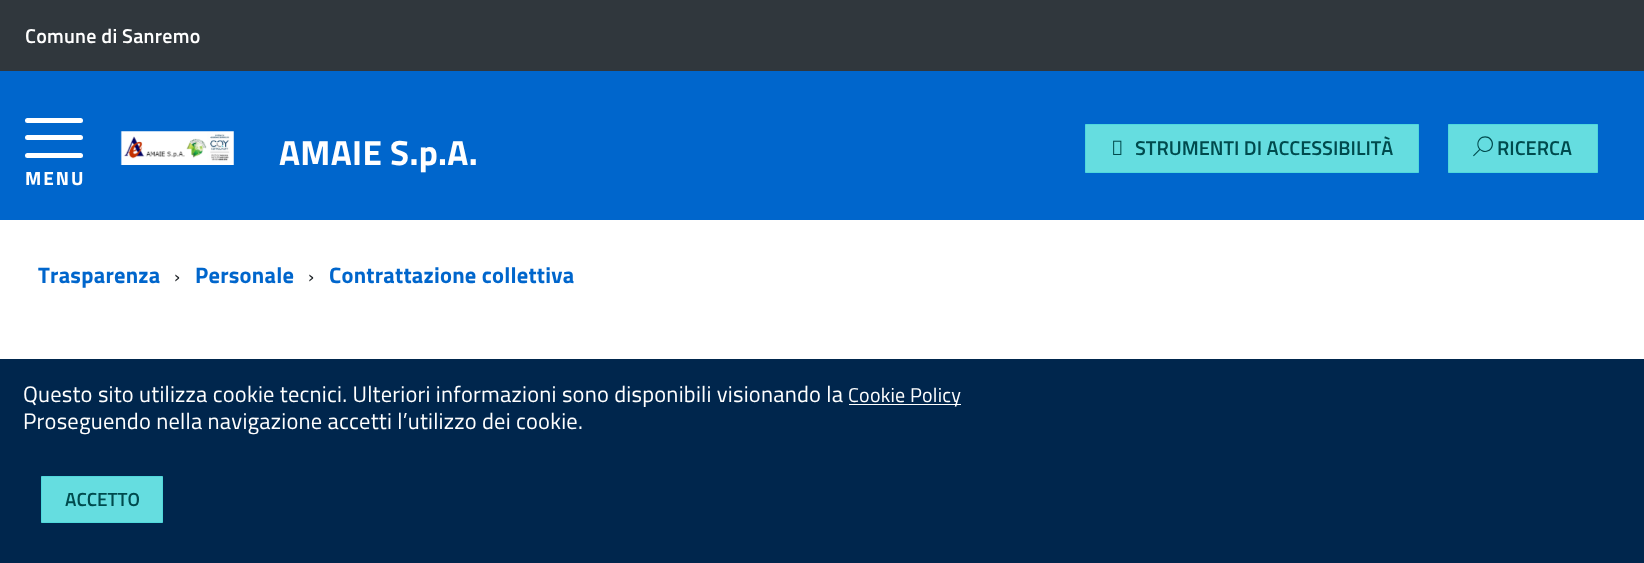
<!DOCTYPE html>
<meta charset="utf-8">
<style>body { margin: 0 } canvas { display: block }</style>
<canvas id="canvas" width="1644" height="563"></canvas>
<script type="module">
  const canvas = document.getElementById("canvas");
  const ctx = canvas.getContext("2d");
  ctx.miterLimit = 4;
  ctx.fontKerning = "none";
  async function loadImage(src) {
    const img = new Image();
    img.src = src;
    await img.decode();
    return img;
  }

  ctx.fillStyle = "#ffffff";
  ctx.fillRect(0, 0, 1644, 563);
  ctx.fillStyle = "#30373d";
  ctx.fillRect(0, 0, 1644, 71);
  ctx.letterSpacing = "0.25px";
  ctx.font = "600 20px Titillium Web";
  ctx.fillStyle = "#ffffff";
  ctx.fillText("Comune di Sanremo", 25, 43);
  ctx.fillStyle = "#0066cc";
  ctx.fillRect(0, 71, 1644, 149);
  ctx.drawImage(await loadImage("img1.png"), 120, 131, 114, 34);
  ctx.letterSpacing = "0.3px";
  ctx.font = "bold 35px Titillium Web";
  ctx.fillStyle = "#ffffff";
  ctx.fillText("AMAIE S.p.A.", 279, 165);
  ctx.fillStyle = "#65dde0";
  ctx.beginPath();
  ctx.rect(1085.5, 124.5, 333, 48);
  ctx.fill();
  ctx.strokeStyle = "#50d8dc";
  ctx.stroke();
  ctx.drawImage(await loadImage("img2.png"), 1113, 140, 9, 15);
  ctx.letterSpacing = "0px";
  ctx.font = "600 20px Titillium Web";
  ctx.fillStyle = "#004a4d";
  ctx.fillText("STRUMENTI DI ACCESSIBILITÀ", 1135, 155);
  ctx.fillStyle = "#65dde0";
  ctx.beginPath();
  ctx.rect(1448.5, 124.5, 149, 48);
  ctx.fill();
  ctx.stroke();
  ctx.font = "20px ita";
  ctx.fillStyle = "#004a4d";
  ctx.fillText("🔍", 1473, 155);
  ctx.font = "600 20px Titillium Web";
  ctx.fillText("RICERCA", 1497, 155);
  ctx.fillStyle = "#ffffff";
  ctx.beginPath();
  ctx.roundRect(25, 135, 58, 5, 2.5);
  ctx.fill();
  ctx.beginPath();
  ctx.roundRect(25, 118, 58, 5, 2.5);
  ctx.fill();
  ctx.beginPath();
  ctx.roundRect(25, 153, 58, 5, 2.5);
  ctx.fill();
  ctx.letterSpacing = "2px";
  ctx.font = "bold 19px Titillium Web";
  ctx.fillText("MENU", 25, 185);
  ctx.letterSpacing = "0.22px";
  ctx.font = "bold 22.5px Titillium Web";
  ctx.fillStyle = "#0066cc";
  ctx.fillText("Trasparenza", 38, 283);
  ctx.letterSpacing = "0px";
  ctx.font = "20px Titillium Web";
  ctx.fillStyle = "#1c2024";
  ctx.fillText("›", 174, 283);
  ctx.letterSpacing = "0.22px";
  ctx.font = "bold 22.5px Titillium Web";
  ctx.fillStyle = "#0066cc";
  ctx.fillText("Personale", 195, 283);
  ctx.letterSpacing = "0px";
  ctx.font = "20px Titillium Web";
  ctx.fillStyle = "#1c2024";
  ctx.fillText("›", 308, 283);
  ctx.letterSpacing = "0.22px";
  ctx.font = "bold 22.5px Titillium Web";
  ctx.fillStyle = "#0066cc";
  ctx.fillText("Contrattazione collettiva", 329, 283);
  ctx.fillStyle = "#00264d";
  ctx.fillRect(0, 359, 1644, 204);
  ctx.font = "22.5px Titillium Web";
  ctx.fillStyle = "#ffffff";
  ctx.fillText("Questo sito utilizza cookie tecnici. Ulteriori informazioni sono disponibili visionando la", 23, 402);
  ctx.fillRect(849, 404, 112, 1);
  ctx.font = "20px Titillium Web";
  ctx.fillText("Cookie Policy", 848, 402);
  ctx.font = "22.5px Titillium Web";
  ctx.fillText("Proseguendo nella navigazione accetti l’utilizzo dei cookie.", 23, 429);
  ctx.fillStyle = "#65dde0";
  ctx.beginPath();
  ctx.rect(41.5, 476.5, 121, 46);
  ctx.fill();
  ctx.stroke();
  ctx.letterSpacing = "0px";
  ctx.font = "600 19px Titillium Web";
  ctx.fillStyle = "#004a4d";
  ctx.fillText("ACCETTO", 65, 506);
</script>
